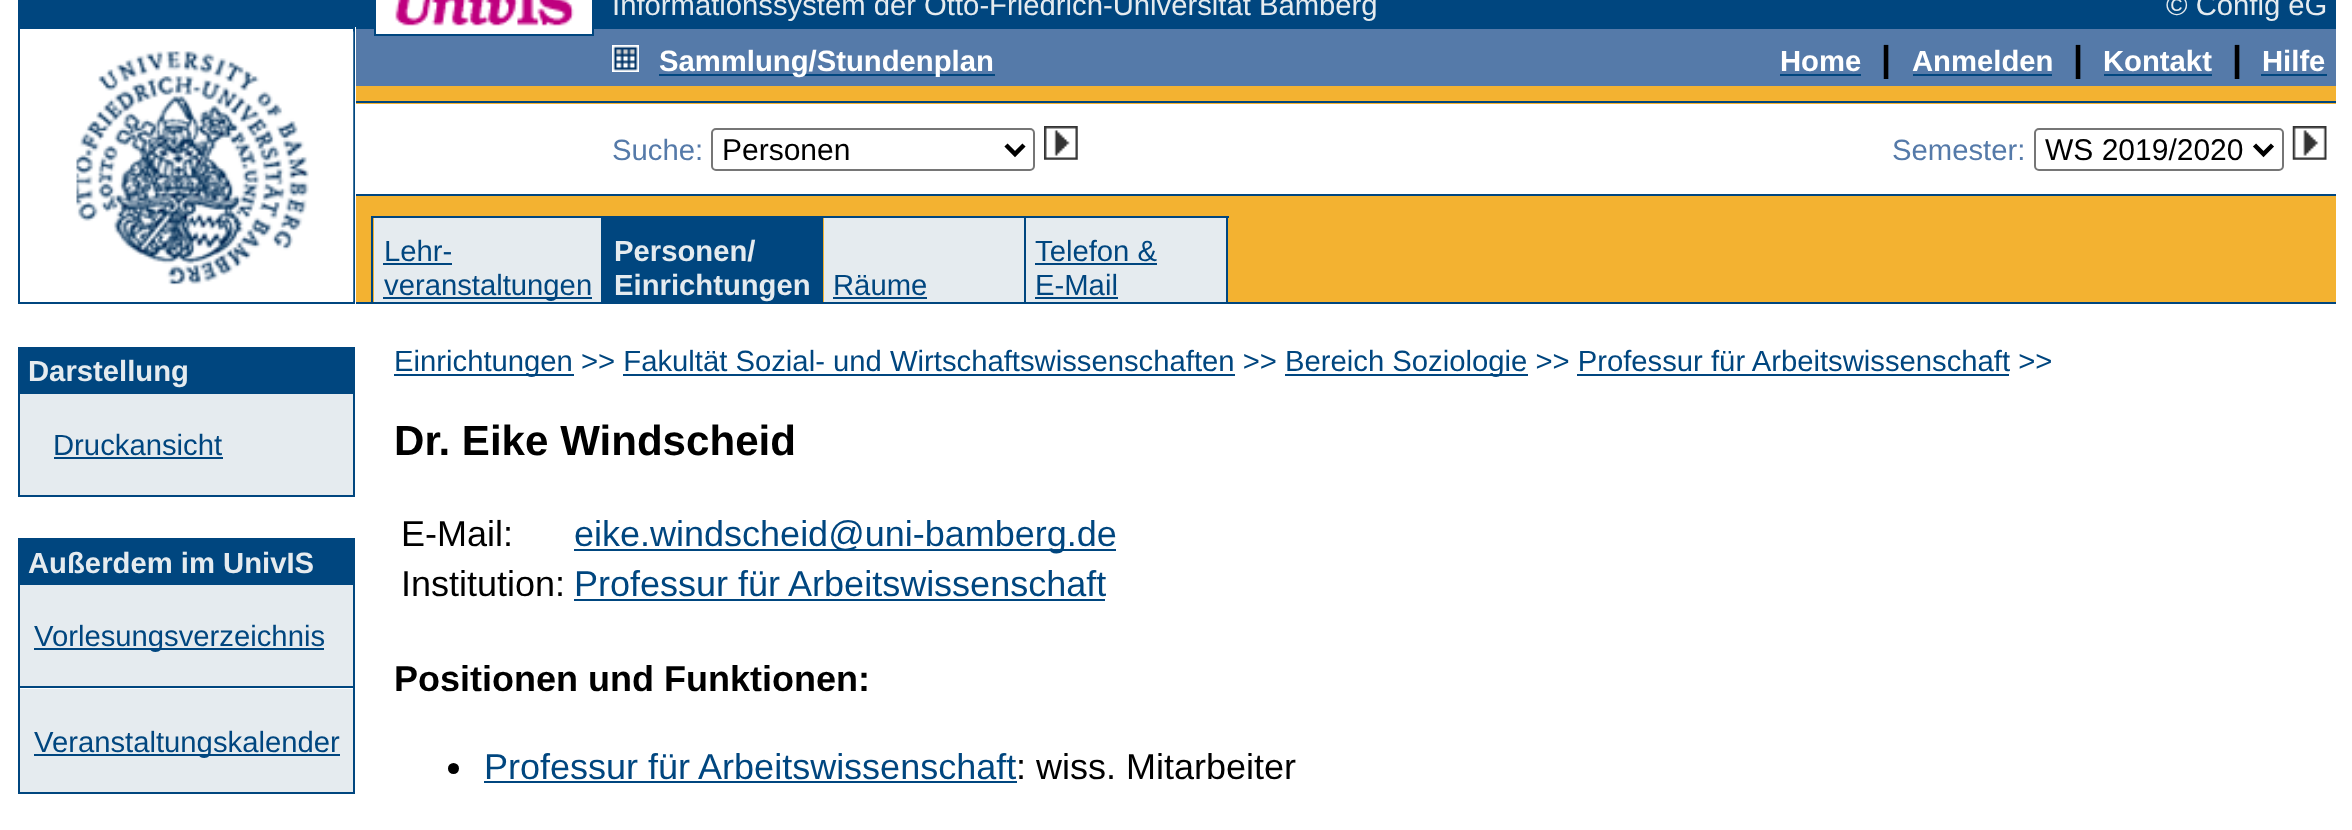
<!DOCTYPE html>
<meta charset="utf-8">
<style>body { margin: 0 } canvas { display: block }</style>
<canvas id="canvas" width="2352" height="830"></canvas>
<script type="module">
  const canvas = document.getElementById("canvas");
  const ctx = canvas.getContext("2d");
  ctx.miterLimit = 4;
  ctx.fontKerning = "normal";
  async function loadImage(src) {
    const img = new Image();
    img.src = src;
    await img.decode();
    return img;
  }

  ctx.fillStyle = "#ffffff";
  ctx.fillRect(0, 0, 2352, 830);
  ctx.fillStyle = "#00467f";
  ctx.fillRect(18, 0, 358, 27);
  ctx.drawImage(await loadImage("img1.png"), 395, 0, 180, 26);
  ctx.fillRect(592, 0, 1744, 27);
  ctx.font = "29.25px Liberation Sans";
  ctx.fillStyle = "#e5ebef";
  ctx.fillText("Informationssystem der Otto-Friedrich-Universität Bamberg", 612, 15);
  ctx.fillText("© Config eG", 2166, 15);
  ctx.fillStyle = "#00467f";
  ctx.fillRect(18, 27, 337, 2);
  ctx.fillRect(356, 27, 1980, 2);
  ctx.fillStyle = "#ffffff";
  ctx.fillRect(376, 27, 216, 2);
  ctx.fillStyle = "#00467f";
  ctx.fillRect(18, 29, 2, 275);
  ctx.fillRect(353, 29, 2, 273);
  ctx.drawImage(await loadImage("img2.png"), 76, 31, 278, 271);
  ctx.fillStyle = "#f3b231";
  ctx.fillRect(356, 86, 1980, 216);
  ctx.fillStyle = "#557aa9";
  ctx.fillRect(356, 29, 1980, 5);
  ctx.fillStyle = "#00467f";
  ctx.fillRect(374, 29, 2, 5);
  ctx.fillStyle = "#ffffff";
  ctx.fillRect(376, 29, 216, 5);
  ctx.fillStyle = "#00467f";
  ctx.fillRect(592, 29, 2, 5);
  ctx.fillStyle = "#557aa9";
  ctx.fillRect(356, 34, 1980, 4);
  ctx.fillStyle = "#00467f";
  ctx.fillRect(374, 34, 220, 2);
  ctx.fillStyle = "#557aa9";
  ctx.fillRect(356, 38, 1980, 48);
  ctx.drawImage(await loadImage("img3.png"), 612, 45, 27, 27);
  ctx.fillStyle = "#00467f";
  ctx.fillRect(659, 74, 336, 2);
  ctx.font = "bold 29.25px Liberation Sans";
  ctx.fillStyle = "#ffffff";
  ctx.fillText("Sammlung/Stundenplan", 659, 71);
  ctx.fillText("Home", 1780, 71);
  ctx.fillStyle = "#00467f";
  ctx.fillRect(1780, 74, 81, 2);
  ctx.font = "bold 36px Liberation Sans";
  ctx.fillStyle = "#000000";
  ctx.fillText("|", 1881, 71);
  ctx.font = "bold 29.25px Liberation Sans";
  ctx.fillStyle = "#ffffff";
  ctx.fillText("Anmelden", 1912, 71);
  ctx.fillStyle = "#00467f";
  ctx.fillRect(1913, 74, 139, 2);
  ctx.font = "bold 36px Liberation Sans";
  ctx.fillStyle = "#000000";
  ctx.fillText("|", 2073, 71);
  ctx.font = "bold 29.25px Liberation Sans";
  ctx.fillStyle = "#ffffff";
  ctx.fillText("Kontakt", 2103, 71);
  ctx.fillStyle = "#00467f";
  ctx.fillRect(2104, 74, 108, 2);
  ctx.font = "bold 36px Liberation Sans";
  ctx.fillStyle = "#000000";
  ctx.fillText("|", 2232, 71);
  ctx.font = "bold 29.25px Liberation Sans";
  ctx.fillStyle = "#ffffff";
  ctx.fillText("Hilfe", 2262, 71);
  ctx.fillStyle = "#00467f";
  ctx.fillRect(2261, 74, 66, 2);
  ctx.fillRect(356, 101, 1980, 2);
  ctx.fillStyle = "#ffffff";
  ctx.fillRect(356, 104, 1980, 90);
  ctx.font = "29.25px Liberation Sans";
  ctx.fillStyle = "#557aa9";
  ctx.fillText("Suche:", 612, 160);
  ctx.beginPath();
  ctx.roundRect(712, 129, 322, 41, 4);
  ctx.strokeStyle = "#767676";
  ctx.lineWidth = 2;
  ctx.stroke();
  ctx.beginPath();
  ctx.moveTo(1006, 145);
  ctx.lineTo(1015, 154);
  ctx.lineTo(1024, 145);
  ctx.strokeStyle = "#000000";
  ctx.lineWidth = 4.5;
  ctx.stroke();
  ctx.font = "30px Liberation Sans";
  ctx.fillStyle = "#000000";
  ctx.fillText("Personen", 722, 160);
  ctx.drawImage(await loadImage("img4.png"), 1044, 126, 34, 34);
  ctx.font = "29.25px Liberation Sans";
  ctx.fillStyle = "#557aa9";
  ctx.fillText("Semester:", 1892, 160);
  ctx.beginPath();
  ctx.roundRect(2035, 129, 248, 41, 4);
  ctx.strokeStyle = "#767676";
  ctx.lineWidth = 2;
  ctx.stroke();
  ctx.beginPath();
  ctx.moveTo(2254.5, 145);
  ctx.lineTo(2263.5, 154);
  ctx.lineTo(2272.5, 145);
  ctx.strokeStyle = "#000000";
  ctx.lineWidth = 4.5;
  ctx.stroke();
  ctx.font = "30px Liberation Sans";
  ctx.fillStyle = "#000000";
  ctx.fillText("WS 2019/2020", 2045, 160);
  ctx.drawImage(await loadImage("img5.png"), 2292, 126, 35, 34);
  ctx.fillStyle = "#00467f";
  ctx.fillRect(356, 194, 1980, 2);
  ctx.fillRect(371, 216, 858, 2);
  ctx.fillRect(371, 218, 2, 84);
  ctx.fillStyle = "#e5ebef";
  ctx.fillRect(374, 218, 227, 84);
  ctx.fillStyle = "#00467f";
  ctx.fillRect(601, 218, 222, 84);
  ctx.fillStyle = "#e5ebef";
  ctx.fillRect(824, 218, 200, 84);
  ctx.fillStyle = "#00467f";
  ctx.fillRect(1024, 218, 2, 84);
  ctx.fillStyle = "#e5ebef";
  ctx.fillRect(1026, 218, 200, 84);
  ctx.fillStyle = "#00467f";
  ctx.fillRect(1226, 218, 2, 84);
  ctx.font = "29.25px Liberation Sans";
  ctx.fillText("Lehr-", 384, 261);
  ctx.fillRect(383, 263, 69, 2);
  ctx.fillRect(383, 297, 209, 2);
  ctx.fillText("veranstaltungen", 384, 295);
  ctx.font = "bold 29.25px Liberation Sans";
  ctx.fillStyle = "#e5ebef";
  ctx.fillText("Personen/", 614, 261);
  ctx.fillText("Einrichtungen", 614, 295);
  ctx.font = "29.25px Liberation Sans";
  ctx.fillStyle = "#00467f";
  ctx.fillText("Räume", 833, 295);
  ctx.fillRect(833, 297, 94, 2);
  ctx.fillText("Telefon &", 1035, 261);
  ctx.fillRect(1035, 263, 122, 2);
  ctx.fillText("E-Mail", 1035, 295);
  ctx.fillRect(1035, 297, 83, 2);
  ctx.fillRect(20, 302, 335, 2);
  ctx.fillRect(356, 302, 1980, 2);
  ctx.fillRect(18, 347, 2, 150);
  ctx.fillRect(20, 347, 333, 47);
  ctx.fillRect(353, 347, 2, 150);
  ctx.font = "bold 29.25px Liberation Sans";
  ctx.fillStyle = "#e5ebef";
  ctx.fillText("Darstellung", 28, 381);
  ctx.fillRect(20, 394, 333, 101);
  ctx.font = "29.25px Liberation Sans";
  ctx.fillStyle = "#00467f";
  ctx.fillText("Druckansicht", 53, 455);
  ctx.fillRect(54, 457, 169, 2);
  ctx.fillRect(20, 495, 333, 2);
  ctx.fillRect(18, 538, 2, 256);
  ctx.fillRect(20, 538, 333, 47);
  ctx.fillRect(353, 538, 2, 256);
  ctx.font = "bold 29.25px Liberation Sans";
  ctx.fillStyle = "#e5ebef";
  ctx.fillText("Außerdem im UnivIS", 28, 573);
  ctx.fillRect(20, 585, 333, 101);
  ctx.fillStyle = "#00467f";
  ctx.fillRect(34, 648, 290, 2);
  ctx.font = "29.25px Liberation Sans";
  ctx.fillText("Vorlesungsverzeichnis", 34, 646);
  ctx.fillRect(20, 686, 333, 2);
  ctx.fillStyle = "#e5ebef";
  ctx.fillRect(20, 689, 333, 2);
  ctx.fillRect(20, 691, 333, 101);
  ctx.fillStyle = "#00467f";
  ctx.fillRect(34, 754, 306, 2);
  ctx.fillText("Veranstaltungskalender", 34, 752);
  ctx.fillRect(20, 792, 333, 2);
  ctx.fillRect(394, 374, 180, 2);
  ctx.fillText("Einrichtungen >> Fakultät Sozial- und Wirtschaftswissenschaften >>", 394, 371);
  ctx.fillRect(623, 374, 612, 2);
  ctx.fillRect(1285, 374, 243, 2);
  ctx.fillText("Bereich Soziologie >> Professur für Arbeitswissenschaft >>", 1285, 371);
  ctx.fillRect(1577, 374, 432, 2);
  ctx.font = "bold 42.1px Liberation Sans";
  ctx.fillStyle = "#000000";
  ctx.fillText("Dr. Eike Windscheid", 394, 455);
  ctx.font = "36px Liberation Sans";
  ctx.fillText("E-Mail:", 401, 546);
  ctx.fillStyle = "#00467f";
  ctx.fillRect(574, 549, 542, 2);
  ctx.fillText("eike.windscheid@uni-bamberg.de", 574, 546);
  ctx.fillStyle = "#000000";
  ctx.fillText("Institution:", 401, 596);
  ctx.fillStyle = "#00467f";
  ctx.fillText("Professur für Arbeitswissenschaft", 574, 596);
  ctx.fillRect(574, 599, 531, 2);
  ctx.font = "bold 36px Liberation Sans";
  ctx.fillStyle = "#000000";
  ctx.fillText("Positionen und Funktionen:", 394, 691);
  ctx.beginPath();
  ctx.arc(453.5, 768.5, 5.5, 0, Math.PI * 2);
  ctx.fill();
  ctx.font = "36px Liberation Sans";
  ctx.fillStyle = "#00467f";
  ctx.fillText("Professur für Arbeitswissenschaft", 484, 779);
  ctx.fillRect(484, 781, 533, 2);
  ctx.fillStyle = "#000000";
  ctx.fillText(": wiss. Mitarbeiter", 1016, 779);
</script>
